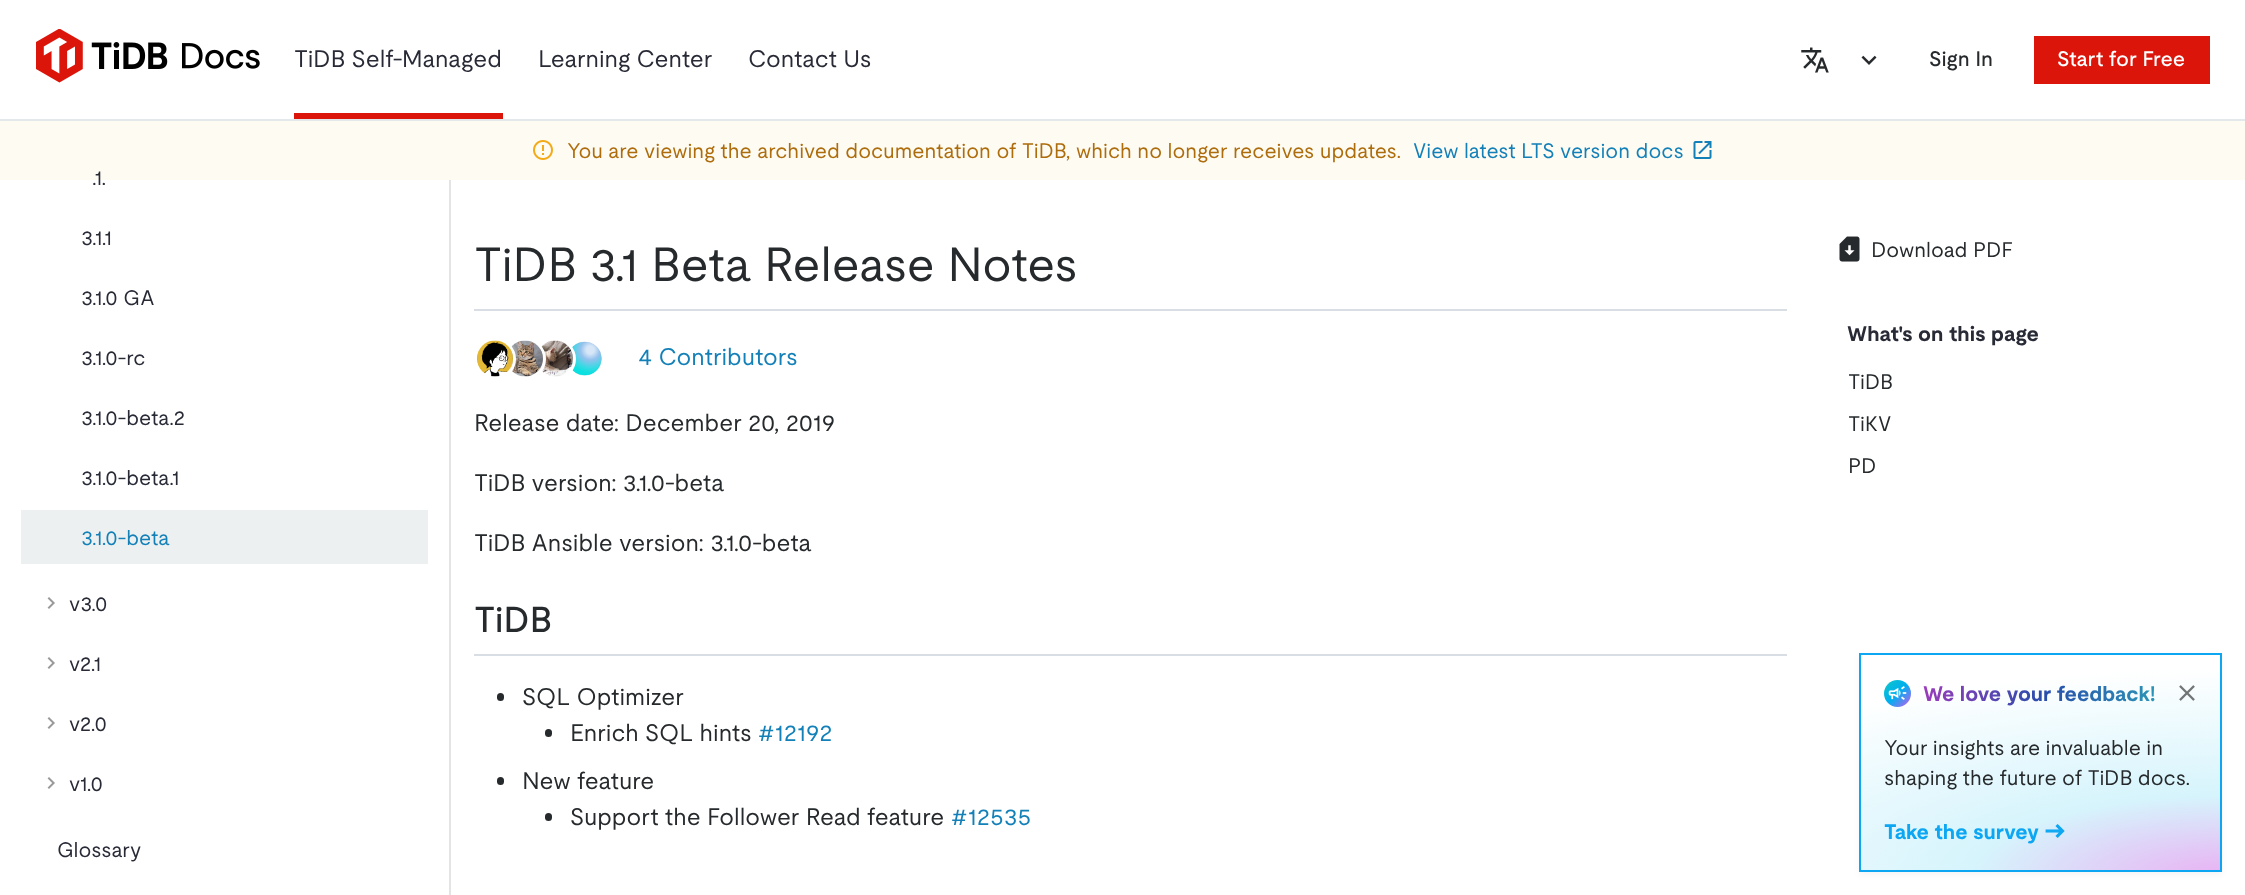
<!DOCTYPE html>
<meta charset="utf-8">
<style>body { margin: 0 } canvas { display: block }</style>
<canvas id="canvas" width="2245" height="895"></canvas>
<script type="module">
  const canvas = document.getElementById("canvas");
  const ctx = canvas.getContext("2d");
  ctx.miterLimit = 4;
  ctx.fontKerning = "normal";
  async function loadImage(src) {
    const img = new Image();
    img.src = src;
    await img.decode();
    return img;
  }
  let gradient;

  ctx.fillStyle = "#ffffff";
  ctx.fillRect(0, 0, 2245, 895);
  ctx.fillStyle = "#e3e8ea";
  ctx.fillRect(0, 119, 2245, 2);
  ctx.drawImage(await loadImage("img1.png"), 36, 29, 224, 54);
  ctx.fillStyle = "#dc150b";
  ctx.fillRect(294, 113, 209, 6);
  ctx.font = "24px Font";
  ctx.fillStyle = "#282a36";
  ctx.fillText("TiDB Self-Managed", 294, 67);
  ctx.fillText("Learning Center", 538, 67);
  ctx.fillText("Contact Us", 748, 67);
  ctx.drawImage(await loadImage("img2.png"), 1801, 47, 28, 26);
  ctx.drawImage(await loadImage("img3.png"), 1861, 55, 16, 10);
  ctx.font = "500 21px Font";
  ctx.fillStyle = "#262a2c";
  ctx.fillText("Sign In", 1929, 66);
  ctx.fillStyle = "#dc150b";
  ctx.fillRect(2034, 36, 176, 48);
  ctx.fillStyle = "#ffffff";
  ctx.fillText("Start for Free", 2057, 66);
  ctx.fillStyle = "#fefbf3";
  ctx.fillRect(0, 121, 2245, 59);
  ctx.drawImage(await loadImage("img4.png"), 533, 140, 20, 20);
  ctx.font = "21px Font";
  ctx.fillStyle = "#ae6d0c";
  ctx.fillText("You are viewing the archived documentation of TiDB, which no longer receives updates.", 567, 158);
  ctx.fillStyle = "#1480b8";
  ctx.fillText("View latest LTS version docs", 1413, 158);
  ctx.drawImage(await loadImage("img5.png"), 1693, 141, 19, 18);
  ctx.fillStyle = "#e5e4e4";
  ctx.fillRect(449, 180, 2, 715);
  ctx.fillStyle = "#282a36";
  ctx.fillText(".1.", 92, 185);
  ctx.fillText("3.1.1", 81, 245);
  ctx.fillText("3.1.0 GA", 81, 305);
  ctx.fillText("3.1.0-rc", 81, 365);
  ctx.fillText("3.1.0-beta.2", 81, 425);
  ctx.fillText("3.1.0-beta.1", 81, 485);
  ctx.fillStyle = "#edf0f1";
  ctx.fillRect(21, 510, 407, 54);
  ctx.fillStyle = "#1480b8";
  ctx.fillText("3.1.0-beta", 81, 545);
  ctx.drawImage(await loadImage("img6.png"), 47, 597, 8, 12);
  ctx.fillStyle = "#282a36";
  ctx.fillText("v3.0", 69, 611);
  ctx.drawImage(await loadImage("img6.png"), 47, 657, 8, 12);
  ctx.fillText("v2.1", 69, 671);
  ctx.drawImage(await loadImage("img6.png"), 47, 717, 8, 12);
  ctx.fillText("v2.0", 69, 731);
  ctx.drawImage(await loadImage("img6.png"), 47, 777, 8, 12);
  ctx.fillText("v1.0", 69, 791);
  ctx.fillText("Glossary", 57, 857);
  ctx.fillStyle = "#d8dee4";
  ctx.fillRect(474, 309, 1313, 2);
  ctx.font = "48px Font";
  ctx.fillStyle = "#262a2c";
  ctx.fillText("TiDB 3.1 Beta Release Notes", 474, 281);
  ctx.drawImage(await loadImage("img10.png"), 569, 341, 33, 35);
  ctx.beginPath();
  ctx.arc(555, 359, 19.5, 0, Math.PI * 2);
  ctx.strokeStyle = "#ffffff";
  ctx.lineWidth = 3;
  ctx.stroke();
  ctx.fillStyle = "#ffffff";
  ctx.beginPath();
  ctx.arc(555, 359, 18, 0, Math.PI * 2);
  ctx.fill();
  ctx.drawImage(await loadImage("img9.png"), 539, 340, 34, 37);
  ctx.beginPath();
  ctx.arc(525, 359, 19.5, 0, Math.PI * 2);
  ctx.stroke();
  ctx.beginPath();
  ctx.arc(525, 359, 18, 0, Math.PI * 2);
  ctx.fill();
  ctx.drawImage(await loadImage("img8.png"), 509, 340, 34, 37);
  ctx.beginPath();
  ctx.arc(495, 359, 19.5, 0, Math.PI * 2);
  ctx.stroke();
  ctx.beginPath();
  ctx.arc(495, 359, 18, 0, Math.PI * 2);
  ctx.fill();
  ctx.drawImage(await loadImage("img7.png"), 477, 340, 36, 37);
  ctx.font = "24px Font";
  ctx.fillStyle = "#1480b8";
  ctx.fillText("4 Contributors", 638, 365);
  ctx.fillStyle = "#262a2c";
  ctx.fillText("Release date: December 20, 2019", 474, 431);
  ctx.fillText("TiDB version: 3.1.0-beta", 474, 491);
  ctx.fillText("TiDB Ansible version: 3.1.0-beta", 474, 551);
  ctx.fillStyle = "#d8dee4";
  ctx.fillRect(474, 654, 1313, 2);
  ctx.font = "500 36px Font";
  ctx.fillStyle = "#262a2c";
  ctx.fillText("TiDB", 474, 632);
  ctx.beginPath();
  ctx.roundRect(497, 693, 7, 8, 3.5);
  ctx.fill();
  ctx.font = "24px Font";
  ctx.fillText("SQL Optimizer", 522, 705);
  ctx.beginPath();
  ctx.roundRect(545, 729, 7, 8, 3.5);
  ctx.fill();
  ctx.fillText("Enrich SQL hints", 570, 741);
  ctx.fillStyle = "#1480b8";
  ctx.fillText("#12192", 758, 741);
  ctx.fillStyle = "#262a2c";
  ctx.beginPath();
  ctx.roundRect(497, 777, 7, 8, 3.5);
  ctx.fill();
  ctx.fillText("New feature", 522, 789);
  ctx.beginPath();
  ctx.roundRect(545, 813, 7, 8, 3.5);
  ctx.fill();
  ctx.fillText("Support the Follower Read feature", 570, 825);
  ctx.fillStyle = "#1480b8";
  ctx.fillText("#12535", 951, 825);
  ctx.drawImage(await loadImage("img11.png"), 1839, 236, 21, 26);
  ctx.font = "21px Font";
  ctx.fillStyle = "#262a2c";
  ctx.fillText("Download PDF", 1871, 257);
  ctx.font = "bold 21px Font";
  ctx.fillStyle = "#282a36";
  ctx.fillText("What's on this page", 1847, 341);
  ctx.font = "21px Font";
  ctx.fillStyle = "#262a2c";
  ctx.fillText("TiDB", 1848, 389);
  ctx.fillText("TiKV", 1848, 431);
  ctx.fillText("PD", 1848, 473);
  ctx.fillStyle = "rgba(0, 0, 0, 0.04)";
  ctx.filter = "blur(3px)";
  ctx.beginPath();
  ctx.rect(1859, 656, 363, 219);
  ctx.fill();
  ctx.filter = "none";
  gradient = ctx.createRadialGradient(2226, 2735.9, 0, 2226, 2735.9, 652);
  gradient.addColorStop(0, "#e9b0f3");
  gradient.addColorStop(0.39, "#d6f4fc");
  gradient.addColorStop(1, "#ffffff");
  ctx.fillStyle = gradient;
  ctx.beginPath();
  ctx.rect(1861, 655, 359, 215);
  ctx.save();
  ctx.clip();
  ctx.scale(1, 209 / 652);
  ctx.fillRect(0, 0, 2245, 2793);
  ctx.restore();
  ctx.strokeStyle = "#0ca6f2";
  ctx.lineWidth = 2;
  ctx.strokeRect(1860, 654, 361, 217);
  gradient = ctx.createLinearGradient(1884, 680, 1911, 707);
  gradient.addColorStop(0, "#0fc7c7");
  gradient.addColorStop(0.5, "#00aeef");
  gradient.addColorStop(1, "#ca5af0");
  ctx.fillStyle = gradient;
  ctx.beginPath();
  ctx.arc(1897.5, 693.5, 13.5, 0, Math.PI * 2);
  ctx.fill();
  ctx.drawImage(await loadImage("img12.png"), 1888, 686, 19, 14);
  ctx.font = "bold 21px Font";
  gradient = ctx.createLinearGradient(1923, 693, 2166, 693);
  gradient.addColorStop(0, "#9a3cbb");
  gradient.addColorStop(0.5, "#284dab");
  gradient.addColorStop(1, "#2d9bb7");
  ctx.fillStyle = gradient;
  ctx.fillText("We love your feedback!", 1923, 701);
  ctx.drawImage(await loadImage("img13.png"), 2179, 685, 16, 16);
  ctx.font = "21px Font";
  ctx.fillStyle = "#262a2c";
  ctx.fillText("Your insights are invaluable in", 1884, 755);
  ctx.fillText("shaping the future of TiDB docs.", 1884, 785);
  ctx.font = "bold 21px Font";
  ctx.fillStyle = "#0ca6f2";
  ctx.fillText("Take the survey", 1884, 839);
  ctx.drawImage(await loadImage("img14.png"), 2045, 824, 20, 14);
</script>
